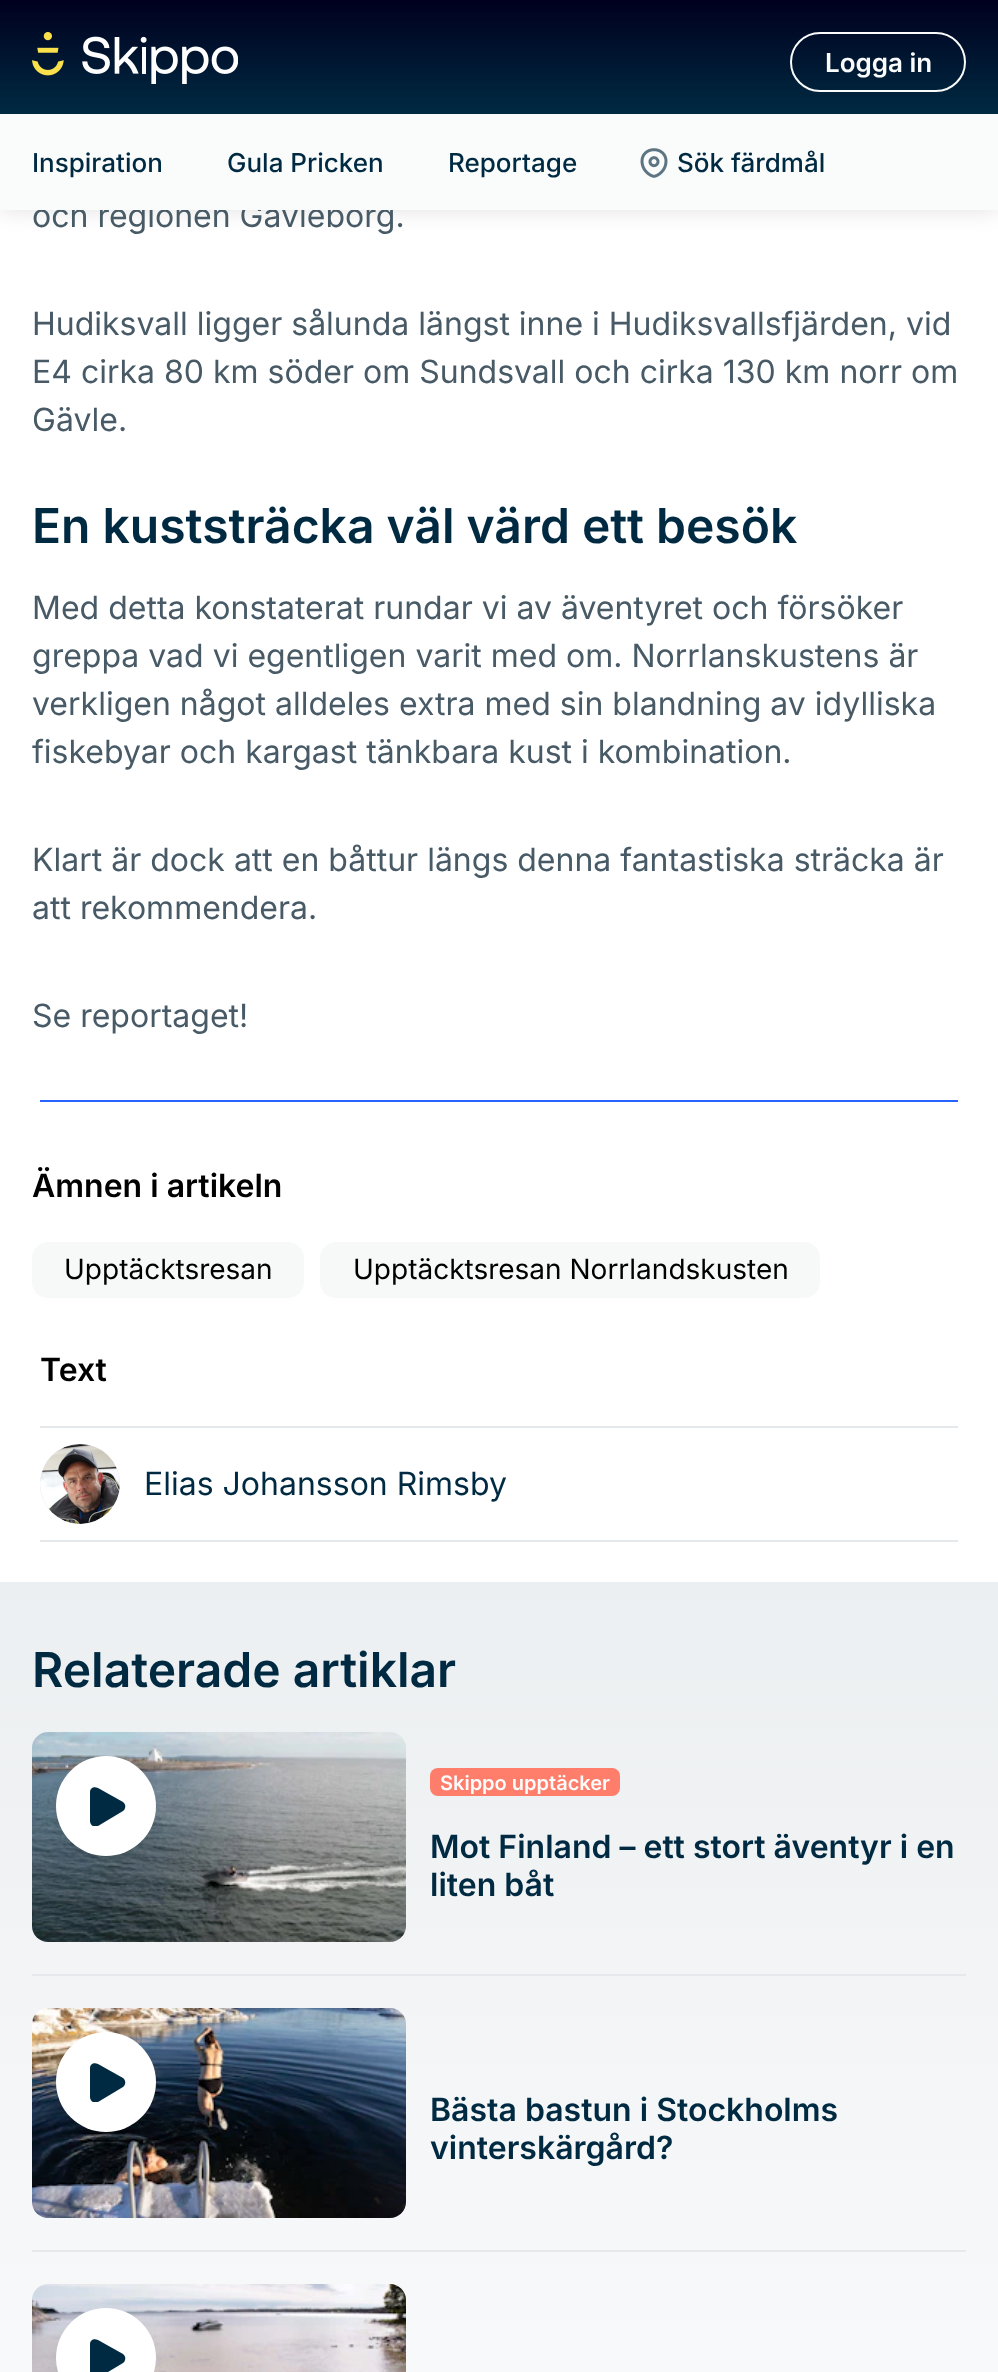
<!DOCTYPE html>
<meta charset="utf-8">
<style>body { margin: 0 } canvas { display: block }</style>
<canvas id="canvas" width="998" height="2372"></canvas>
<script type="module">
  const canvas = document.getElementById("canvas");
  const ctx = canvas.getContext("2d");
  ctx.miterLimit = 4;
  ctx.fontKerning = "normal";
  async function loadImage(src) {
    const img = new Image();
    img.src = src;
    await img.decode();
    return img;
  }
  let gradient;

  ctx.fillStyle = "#ffffff";
  ctx.fillRect(0, 0, 998, 2372);
  ctx.fillStyle = "rgba(0, 0, 0, 0.1)";
  ctx.filter = "blur(10px)";
  ctx.beginPath();
  ctx.rect(0, 116, 998, 96);
  ctx.fill();
  ctx.filter = "none";
  gradient = ctx.createLinearGradient(499, 114, 499, 0);
  gradient.addColorStop(0, "#002a42");
  gradient.addColorStop(1, "#00001e");
  ctx.fillStyle = gradient;
  ctx.fillRect(0, 0, 998, 114);
  ctx.drawImage(await loadImage("img1.png"), 32, 32, 206, 52);
  ctx.beginPath();
  ctx.roundRect(791, 33, 174, 58, 29);
  ctx.strokeStyle = "#fafbfb";
  ctx.lineWidth = 2;
  ctx.stroke();
  ctx.font = "600 26px Inter";
  ctx.fillStyle = "#fafbfb";
  ctx.fillText("Logga in", 825, 72);
  ctx.font = "32px Inter";
  ctx.fillStyle = "#475a66";
  ctx.fillText("och regionen Gävleborg.", 32, 227);
  ctx.fillStyle = "#fafbfb";
  ctx.fillRect(0, 114, 998, 96);
  ctx.font = "500 26px Inter";
  ctx.fillStyle = "#002a42";
  ctx.fillText("Inspiration", 32, 172);
  ctx.fillText("Gula Pricken", 227, 172);
  ctx.fillText("Reportage", 448, 172);
  ctx.drawImage(await loadImage("img2.png"), 640, 148, 28, 30);
  ctx.fillText("Sök färdmål", 677, 172);
  ctx.font = "32px Inter";
  ctx.fillStyle = "#475a66";
  ctx.fillText("Hudiksvall ligger sålunda längst inne i Hudiksvallsfjärden, vid", 32, 335);
  ctx.fillText("E4 cirka 80 km söder om Sundsvall och cirka 130 km norr om", 32, 383);
  ctx.fillText("Gävle.", 32, 431);
  ctx.font = "600 48px Inter";
  ctx.fillStyle = "#002a42";
  ctx.fillText("En kuststräcka väl värd ett besök", 32, 543);
  ctx.font = "32px Inter";
  ctx.fillStyle = "#475a66";
  ctx.fillText("Med detta konstaterat rundar vi av äventyret och försöker", 32, 619);
  ctx.fillText("greppa vad vi egentligen varit med om. Norrlanskustens är", 32, 667);
  ctx.fillText("verkligen något alldeles extra med sin blandning av idylliska", 32, 715);
  ctx.fillText("fiskebyar och kargast tänkbara kust i kombination.", 32, 763);
  ctx.fillText("Klart är dock att en båttur längs denna fantastiska sträcka är", 32, 871);
  ctx.fillText("att rekommendera.", 32, 919);
  ctx.fillText("Se reportaget!", 32, 1027);
  ctx.fillStyle = "#2764ff";
  ctx.fillRect(40, 1100, 918, 2);
  ctx.font = "600 32px Inter";
  ctx.fillStyle = "#000000";
  ctx.fillText("Ämnen i artikeln", 32, 1197);
  ctx.fillStyle = "#f7f9f9";
  ctx.beginPath();
  ctx.roundRect(32, 1242, 272, 56, 16);
  ctx.fill();
  ctx.font = "28px Inter";
  ctx.fillStyle = "#000000";
  ctx.fillText("Upptäcktsresan", 64, 1279);
  ctx.fillStyle = "#f7f9f9";
  ctx.beginPath();
  ctx.roundRect(320, 1242, 500, 56, 16);
  ctx.fill();
  ctx.fillStyle = "#000000";
  ctx.fillText("Upptäcktsresan Norrlandskusten", 353, 1279);
  ctx.font = "600 32px Inter";
  ctx.fillText("Text", 40, 1381);
  ctx.fillStyle = "#e5e9ec";
  ctx.fillRect(40, 1426, 918, 2);
  ctx.fillRect(40, 1540, 918, 2);
  ctx.fillStyle = "#dddddd";
  ctx.beginPath();
  ctx.arc(80, 1484, 40, 0, Math.PI * 2);
  ctx.fill();
  ctx.drawImage(await loadImage("img3.png"), 40, 1444, 80, 80);
  ctx.font = "32px Inter";
  ctx.fillStyle = "#002a42";
  ctx.fillText("Elias Johansson Rimsby", 144, 1495);
  gradient = ctx.createLinearGradient(499, 1582, 499, 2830);
  gradient.addColorStop(0, "#eceff1");
  gradient.addColorStop(1, "#ffffff");
  ctx.fillStyle = gradient;
  ctx.fillRect(0, 1582, 998, 790);
  ctx.font = "600 48px Inter";
  ctx.fillStyle = "#002a42";
  ctx.fillText("Relaterade artiklar", 32, 1687);
  ctx.drawImage(await loadImage("img4.png"), 32, 1732, 374, 210);
  ctx.fillStyle = "rgba(0, 0, 0, 0.1)";
  ctx.filter = "blur(8px)";
  ctx.beginPath();
  ctx.roundRect(60, 1768, 92, 92, 46);
  ctx.fill();
  ctx.filter = "none";
  ctx.fillStyle = "#ffffff";
  ctx.beginPath();
  ctx.arc(106, 1806, 50, 0, Math.PI * 2);
  ctx.fill();
  ctx.save();
  ctx.beginPath();
  ctx.rect(88, 1786, 40, 40);
  ctx.clip();
  ctx.fillStyle = "#002a42";
  ctx.beginPath();
  ctx.moveTo(123, 1802);
  ctx.bezierCurveTo(126, 1804, 126, 1809, 123, 1811);
  ctx.lineTo(98, 1826);
  ctx.bezierCurveTo(94, 1828, 90, 1825, 90, 1821);
  ctx.lineTo(90, 1792);
  ctx.bezierCurveTo(90, 1788, 94, 1786, 98, 1788);
  ctx.closePath();
  ctx.fill();
  ctx.restore();
  ctx.fillStyle = "#ff7e6b";
  ctx.beginPath();
  ctx.roundRect(430, 1768, 190, 28, 8);
  ctx.fill();
  ctx.font = "600 20px Inter";
  ctx.fillStyle = "#fafbfb";
  ctx.fillText("Skippo upptäcker", 440, 1790);
  ctx.font = "600 32px Inter";
  ctx.fillStyle = "#002a42";
  ctx.fillText("Mot Finland – ett stort äventyr i en", 430, 1858);
  ctx.fillText("liten båt", 430, 1896);
  ctx.fillStyle = "#e5e9ec";
  ctx.fillRect(32, 1974, 934, 2);
  ctx.drawImage(await loadImage("img5.png"), 32, 2008, 374, 210);
  ctx.fillStyle = "rgba(0, 0, 0, 0.1)";
  ctx.filter = "blur(8px)";
  ctx.beginPath();
  ctx.roundRect(60, 2044, 92, 92, 46);
  ctx.fill();
  ctx.filter = "none";
  ctx.fillStyle = "#ffffff";
  ctx.beginPath();
  ctx.arc(106, 2082, 50, 0, Math.PI * 2);
  ctx.fill();
  ctx.save();
  ctx.beginPath();
  ctx.rect(88, 2062, 40, 40);
  ctx.clip();
  ctx.fillStyle = "#002a42";
  ctx.beginPath();
  ctx.moveTo(123, 2078);
  ctx.bezierCurveTo(126, 2080, 126, 2085, 123, 2087);
  ctx.lineTo(98, 2102);
  ctx.bezierCurveTo(94, 2104, 90, 2101, 90, 2097);
  ctx.lineTo(90, 2068);
  ctx.bezierCurveTo(90, 2064, 94, 2062, 98, 2064);
  ctx.closePath();
  ctx.fill();
  ctx.restore();
  ctx.fillStyle = "#002a42";
  ctx.fillText("Bästa bastun i Stockholms", 430, 2121);
  ctx.fillText("vinterskärgård?", 430, 2159);
  ctx.fillStyle = "#e5e9ec";
  ctx.fillRect(32, 2250, 934, 2);
  ctx.drawImage(await loadImage("img6.png"), 32, 2284, 374, 88);
  ctx.fillStyle = "rgba(0, 0, 0, 0.1)";
  ctx.filter = "blur(8px)";
  ctx.beginPath();
  ctx.roundRect(60, 2320, 92, 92, 46);
  ctx.fill();
  ctx.filter = "none";
  ctx.fillStyle = "#ffffff";
  ctx.beginPath();
  ctx.arc(106, 2358, 50, 0, Math.PI * 2);
  ctx.fill();
  ctx.fillStyle = "#002a42";
  ctx.beginPath();
  ctx.moveTo(123, 2354);
  ctx.bezierCurveTo(126, 2356, 126, 2361, 123, 2363);
  ctx.lineTo(98, 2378);
  ctx.bezierCurveTo(94, 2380, 90, 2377, 90, 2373);
  ctx.lineTo(90, 2344);
  ctx.bezierCurveTo(90, 2340, 94, 2338, 98, 2340);
  ctx.closePath();
  ctx.fill();
</script>
